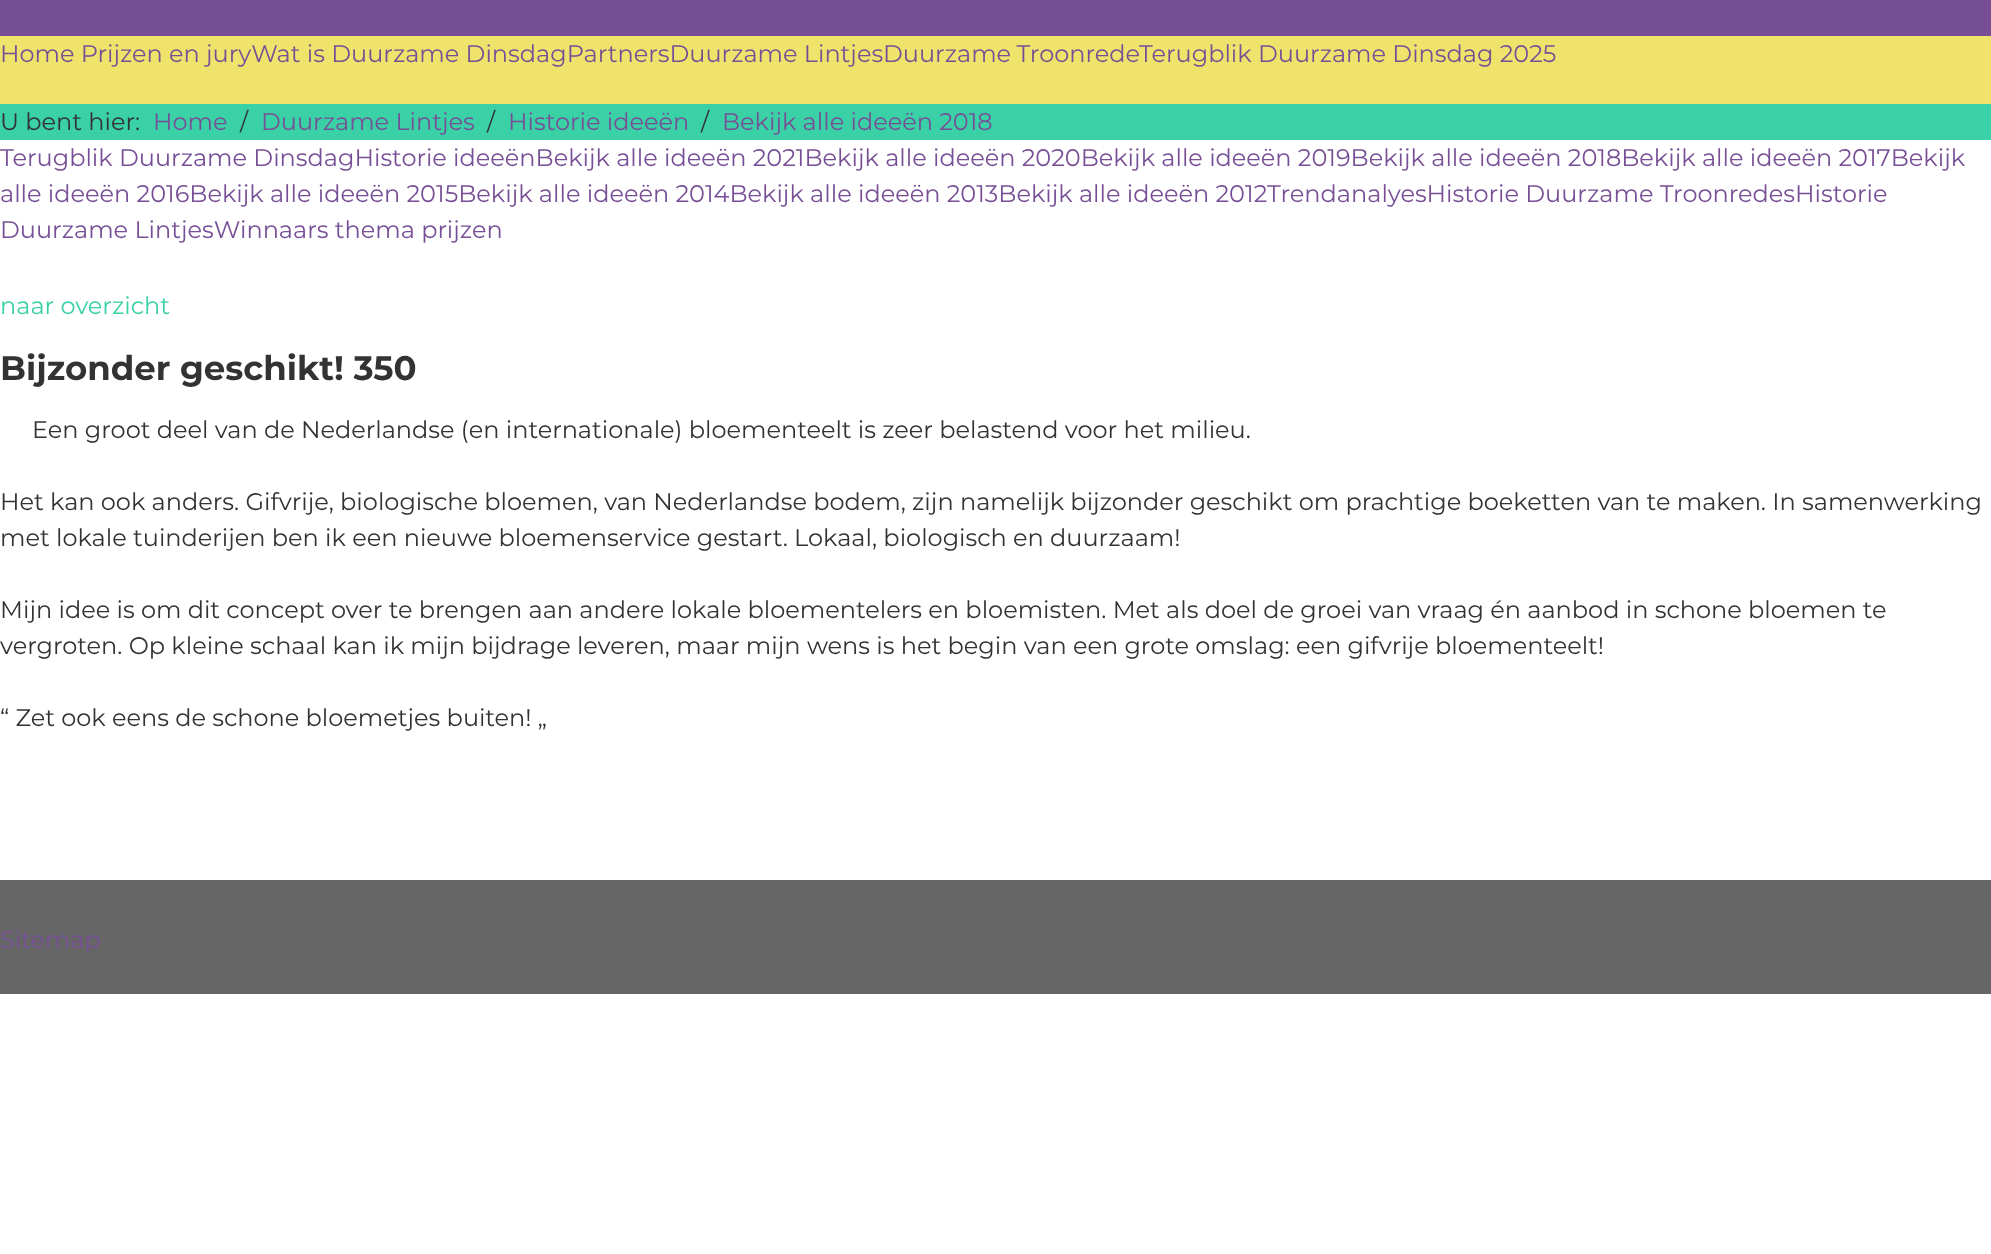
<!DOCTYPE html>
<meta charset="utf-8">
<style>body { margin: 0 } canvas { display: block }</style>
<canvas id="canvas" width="1991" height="1254"></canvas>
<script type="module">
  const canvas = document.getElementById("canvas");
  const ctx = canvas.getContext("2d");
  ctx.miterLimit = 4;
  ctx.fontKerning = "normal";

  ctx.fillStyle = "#ffffff";
  ctx.fillRect(0, 0, 1991, 1254);
  ctx.fillStyle = "#774f96";
  ctx.fillRect(0, 0, 1991, 36);
  ctx.fillStyle = "#efe36b";
  ctx.fillRect(0, 36, 1991, 68);
  ctx.font = "24px Montserrat";
  ctx.fillStyle = "#774f96";
  ctx.fillText("Home Prijzen en juryWat is Duurzame DinsdagPartnersDuurzame Lintjes", 0, 62);
  ctx.wordSpacing = "-1px";
  ctx.fillText("Duurzame Troonrede", 883, 62);
  ctx.wordSpacing = "0px";
  ctx.fillText("Terugblik Duurzame Dinsdag 2025", 1139, 62);
  ctx.fillStyle = "#3ad1a7";
  ctx.fillRect(0, 104, 1991, 36);
  ctx.fillStyle = "#333333";
  ctx.fillText("U bent hier:", 0, 130);
  ctx.fillStyle = "#774f96";
  ctx.fillText("Home", 153, 130);
  ctx.fillStyle = "#333333";
  ctx.fillText("/", 240, 130);
  ctx.fillStyle = "#774f96";
  ctx.fillText("Duurzame Lintjes", 261, 130);
  ctx.fillStyle = "#333333";
  ctx.fillText("/", 487, 130);
  ctx.fillStyle = "#774f96";
  ctx.fillText("Historie ideeën", 508, 130);
  ctx.fillStyle = "#333333";
  ctx.fillText("/", 701, 130);
  ctx.fillStyle = "#774f96";
  ctx.fillText("Bekijk alle ideeën 2018", 722, 130);
  ctx.fillText("Terugblik Duurzame DinsdagHistorie ideeënBekijk alle ideeën 2021Bekijk alle ideeën 2020Bekijk alle ideeën 2019Bekijk alle ideeën 2018Bekijk alle ideeën 2017Bekijk", 0, 166);
  ctx.fillText("alle ideeën 2016Bekijk alle ideeën 2015Bekijk alle ideeën 2014Bekijk alle ideeën 2013Bekijk alle ideeën 2012TrendanalyesHistorie Duurzame TroonredesHistorie", 0, 202);
  ctx.fillText("Duurzame LintjesWinnaars thema prijzen", 0, 238);
  ctx.fillStyle = "#3ad1a7";
  ctx.fillText("naar overzicht", 0, 314);
  ctx.font = "bold 34px Montserrat";
  ctx.fillStyle = "#333333";
  ctx.fillText("Bijzonder geschikt! 350", 0, 380);
  ctx.font = "24px Montserrat";
  ctx.fillText("Een groot deel van de Nederlandse (en internationale) bloementeelt is zeer belastend voor het milieu.", 32, 438);
  ctx.fillText("Het kan ook anders. Gifvrije, biologische bloemen, van Nederlandse bodem, zijn namelijk bijzonder geschikt om prachtige boeketten van te maken. In samenwerking", 0, 510);
  ctx.fillText("met lokale tuinderijen ben ik een nieuwe bloemenservice gestart. Lokaal, biologisch en duurzaam!", 0, 546);
  ctx.fillText("Mijn idee is om dit concept over te brengen aan andere lokale bloementelers en bloemisten. Met als doel de groei van vraag én aanbod in schone bloemen te", 0, 618);
  ctx.fillText("vergroten. Op kleine schaal kan ik mijn bijdrage leveren, maar mijn wens is het begin van een grote omslag: een gifvrije bloementeelt!", 0, 654);
  ctx.fillText("“ Zet ook eens de schone bloemetjes buiten! „", 0, 726);
  ctx.fillStyle = "#666666";
  ctx.fillRect(0, 880, 1991, 114);
  ctx.fillStyle = "#774f96";
  ctx.fillText("Sitemap", 0, 948);
</script>
